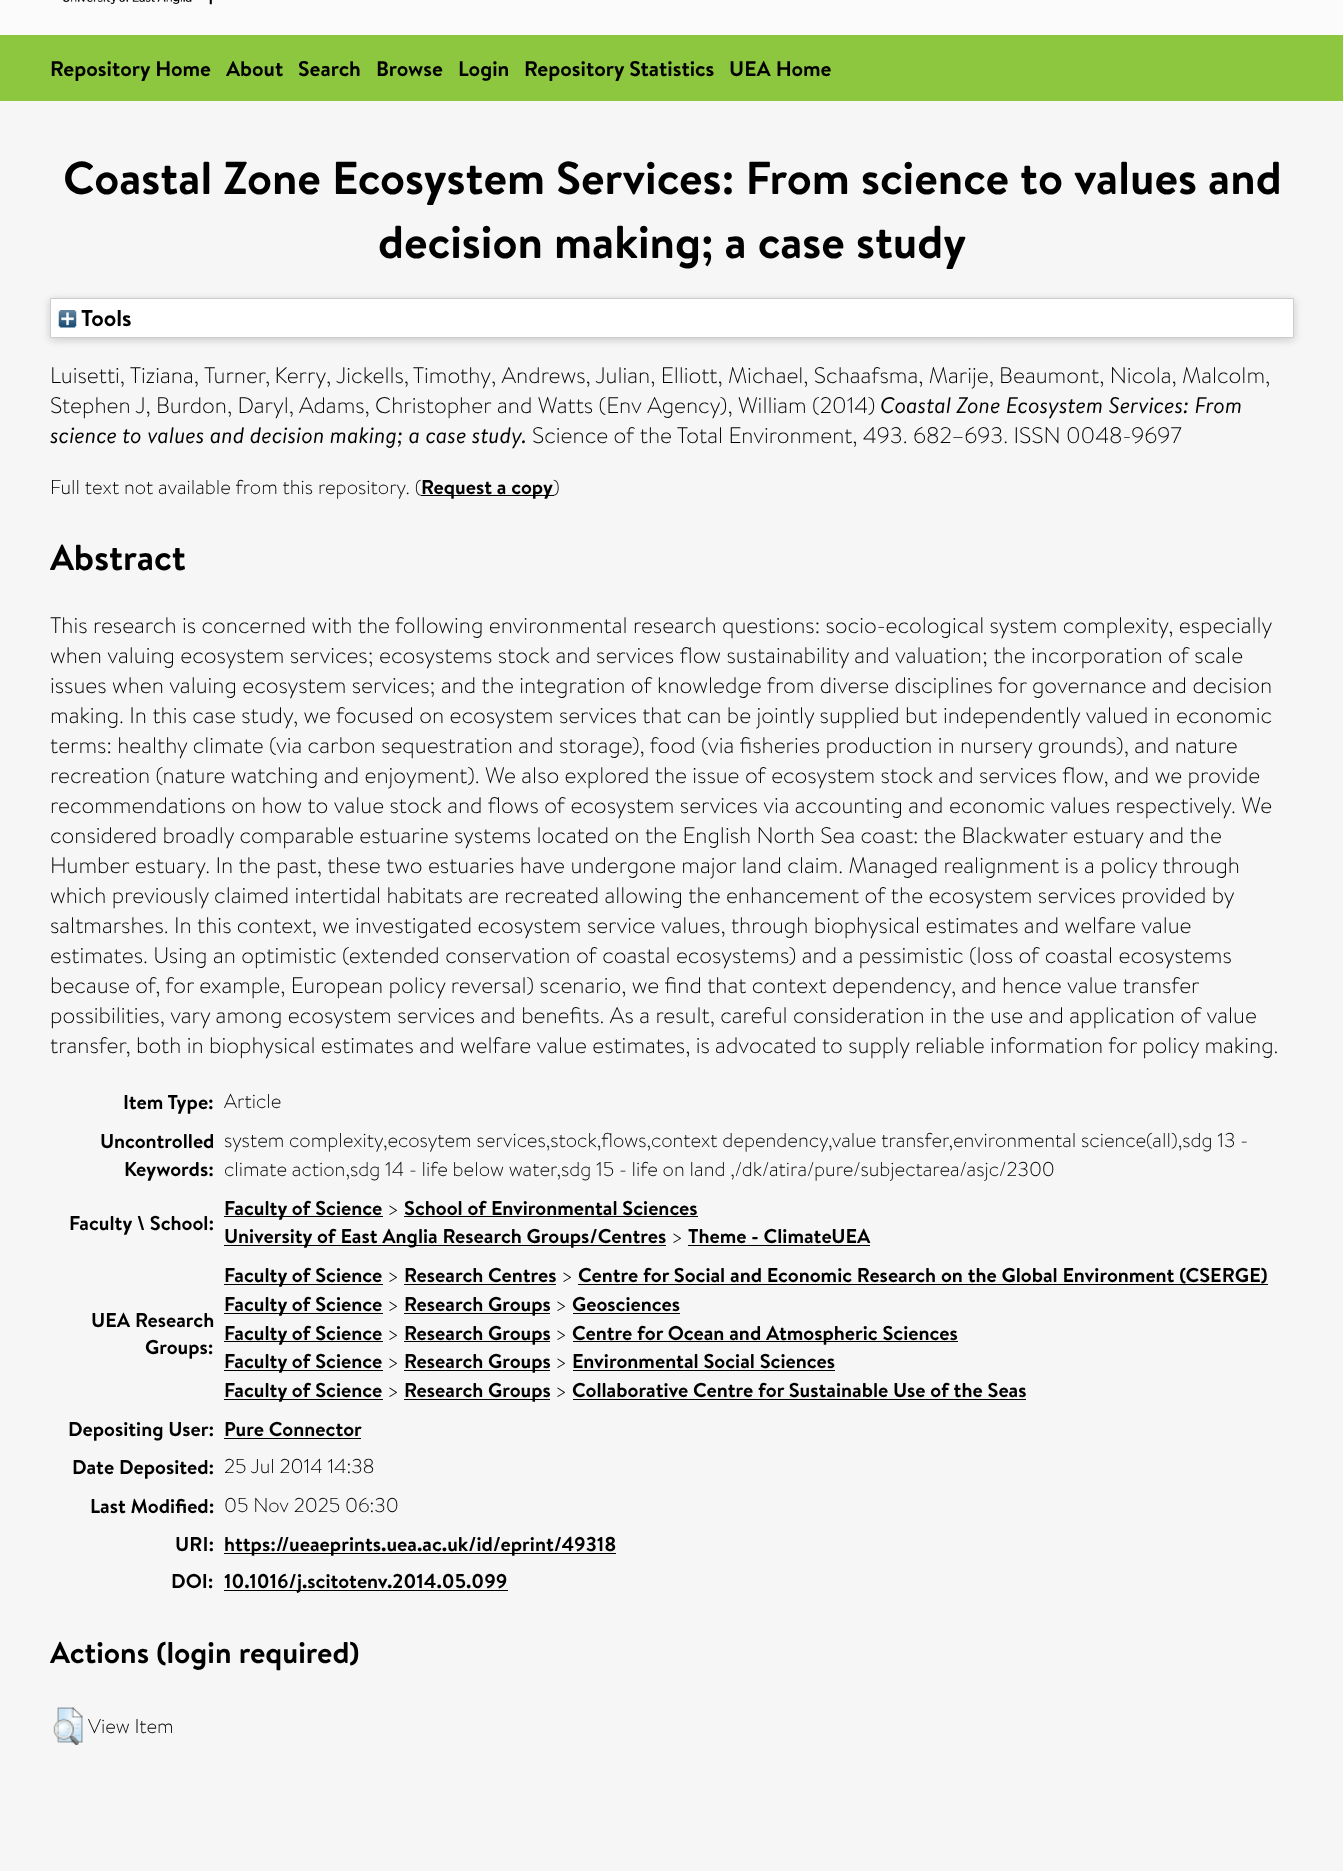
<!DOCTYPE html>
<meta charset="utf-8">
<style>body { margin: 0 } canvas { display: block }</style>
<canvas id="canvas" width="1343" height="1871"></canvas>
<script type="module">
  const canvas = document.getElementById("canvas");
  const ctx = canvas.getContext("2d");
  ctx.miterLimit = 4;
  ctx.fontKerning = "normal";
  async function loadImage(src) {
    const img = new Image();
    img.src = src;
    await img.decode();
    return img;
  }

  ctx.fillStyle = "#f6f6f6";
  ctx.fillRect(0, 0, 1343, 1871);
  ctx.fillStyle = "#fbfbfb";
  ctx.fillRect(0, 0, 1343, 35);
  ctx.drawImage(await loadImage("img1.png"), 63, 0, 149, 5);
  ctx.fillStyle = "#8dc63f";
  ctx.fillRect(0, 35, 1343, 66);
  ctx.font = "bold 21.25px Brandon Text";
  ctx.fillStyle = "#000000";
  ctx.fillText("Repository Home", 50, 76);
  ctx.fillText("About", 226, 76);
  ctx.fillText("Search", 298, 76);
  ctx.fillText("Browse", 376, 76);
  ctx.fillText("Login", 458, 76);
  ctx.fillText("Repository Statistics", 524, 76);
  ctx.fillText("UEA Home", 729, 76);
  ctx.font = "bold 46px Brandon Text";
  ctx.fillText("Coastal Zone Ecosystem Services: From science to values and", 63, 194);
  ctx.fillText("decision making; a case study", 378, 258);
  ctx.fillStyle = "rgba(100, 100, 100, 0.3)";
  ctx.filter = "blur(4px)";
  ctx.beginPath();
  ctx.rect(50, 300, 1244, 40);
  ctx.fill();
  ctx.filter = "none";
  ctx.fillStyle = "#ffffff";
  ctx.beginPath();
  ctx.rect(50.5, 298.5, 1243, 39);
  ctx.fill();
  ctx.strokeStyle = "#cccccc";
  ctx.stroke();
  ctx.drawImage(await loadImage("img2.png"), 58, 310, 19, 18);
  ctx.font = "bold 23px Brandon Text";
  ctx.fillStyle = "#000000";
  ctx.fillText("Tools", 81, 326);
  ctx.font = "300 22.5px Brandon Text";
  ctx.fillText("Luisetti, Tiziana,", 50, 383);
  ctx.wordSpacing = "-1px";
  ctx.fillText("Turner, Kerry", 204, 383);
  ctx.wordSpacing = "0px";
  ctx.fillText(",", 326, 383);
  ctx.wordSpacing = "-1px";
  ctx.fillText("Jickells, Timothy", 336, 383);
  ctx.wordSpacing = "0px";
  ctx.fillText(", Andrews, Julian, Elliott, Michael, Schaafsma, Marije, Beaumont, Nicola, Malcolm,", 491, 383);
  ctx.fillText("Stephen J, Burdon, Daryl,", 50, 413);
  ctx.fillText("Adams, Christopher", 299, 413);
  ctx.fillText("and Watts (Env Agency), William (2014)", 497, 413);
  ctx.font = "italic 22.5px Brandon Text";
  ctx.fillText("Coastal Zone Ecosystem Services: From", 880, 413);
  ctx.fillText("science to values and decision making; a case study.", 50, 443);
  ctx.font = "300 22.5px Brandon Text";
  ctx.fillText("Science of the Total Environment, 493. 682–693. ISSN 0048-9697", 532, 443);
  ctx.font = "300 20px Brandon Text";
  ctx.fillText("Full text not available from this repository. (", 50, 494);
  ctx.fillRect(421, 495, 133, 1);
  ctx.font = "bold 20px Brandon Text";
  ctx.fillText("Request a copy", 421, 494);
  ctx.font = "300 20px Brandon Text";
  ctx.fillText(")", 553, 494);
  ctx.font = "bold 36px Brandon Text";
  ctx.fillText("Abstract", 50, 570);
  ctx.font = "300 22.5px Brandon Text";
  ctx.fillText("This research is concerned with the following environmental research questions: socio-ecological system complexity, especially", 50, 633);
  ctx.fillText("when valuing ecosystem services; ecosystems stock and services flow sustainability and valuation; the incorporation of scale", 50, 663);
  ctx.fillText("issues when valuing ecosystem services; and the integration of knowledge from diverse disciplines for governance and decision", 50, 693);
  ctx.fillText("making. In this case study, we focused on ecosystem services that can be jointly supplied but independently valued in economic", 50, 723);
  ctx.fillText("terms: healthy climate (via carbon sequestration and storage), food (via fisheries production in nursery grounds), and nature", 50, 753);
  ctx.fillText("recreation (nature watching and enjoyment). We also explored the issue of ecosystem stock and services flow, and we provide", 50, 783);
  ctx.fillText("recommendations on how to value stock and flows of ecosystem services via accounting and economic values respectively. We", 50, 813);
  ctx.fillText("considered broadly comparable estuarine systems located on the English North Sea coast: the Blackwater estuary and the", 50, 843);
  ctx.fillText("Humber estuary. In the past, these two estuaries have undergone major land claim. Managed realignment is a policy through", 50, 873);
  ctx.fillText("which previously claimed intertidal habitats are recreated allowing the enhancement of the ecosystem services provided by", 50, 903);
  ctx.fillText("saltmarshes. In this context, we investigated ecosystem service values, through biophysical estimates and welfare value", 50, 933);
  ctx.fillText("estimates. Using an optimistic (extended conservation of coastal ecosystems) and a pessimistic (loss of coastal ecosystems", 50, 963);
  ctx.fillText("because of, for example, European policy reversal) scenario, we find that context dependency, and hence value transfer", 50, 993);
  ctx.fillText("possibilities, vary among ecosystem services and benefits. As a result, careful consideration in the use and application of value", 50, 1023);
  ctx.fillText("transfer, both in biophysical estimates and welfare value estimates, is advocated to supply reliable information for policy making.", 50, 1053);
  ctx.font = "bold 20px Brandon Text";
  ctx.fillText("Item Type:", 123, 1109);
  ctx.font = "300 20px Brandon Text";
  ctx.fillText("Article", 224, 1108);
  ctx.font = "bold 20px Brandon Text";
  ctx.fillText("Uncontrolled", 100, 1148);
  ctx.fillText("Keywords:", 124, 1176);
  ctx.font = "300 20px Brandon Text";
  ctx.fillText("system complexity,ecosytem services,stock,flows,context dependency,value transfer,environmental science(all),sdg 13 -", 224, 1147);
  ctx.fillText("climate action,sdg 14 - life below water,sdg 15 - life on land ,/dk/atira/pure/subjectarea/asjc/2300", 224, 1176);
  ctx.font = "bold 20px Brandon Text";
  ctx.fillText("Faculty \\ School:", 69, 1230);
  ctx.fillRect(224, 1216, 159, 1);
  ctx.fillText("Faculty of Science", 224, 1215);
  ctx.font = "300 20px Brandon Text";
  ctx.fillText(">", 387, 1215);
  ctx.font = "bold 20px Brandon Text";
  ctx.fillText("School of Environmental Sciences", 404, 1215);
  ctx.fillRect(404, 1216, 294, 1);
  ctx.fillRect(224, 1245, 442, 1);
  ctx.fillText("University of East Anglia Research Groups/Centres", 224, 1243);
  ctx.font = "300 20px Brandon Text";
  ctx.fillText(">", 671, 1243);
  ctx.font = "bold 20px Brandon Text";
  ctx.fillText("Theme - ClimateUEA", 688, 1243);
  ctx.fillRect(688, 1245, 182, 1);
  ctx.fillText("UEA Research", 91, 1327);
  ctx.fillText("Groups:", 145, 1354);
  ctx.fillRect(224, 1284, 159, 1);
  ctx.fillText("Faculty of Science", 224, 1282);
  ctx.font = "300 20px Brandon Text";
  ctx.fillText(">", 387, 1282);
  ctx.font = "bold 20px Brandon Text";
  ctx.fillText("Research Centres", 404, 1282);
  ctx.fillRect(404, 1284, 152, 1);
  ctx.font = "300 20px Brandon Text";
  ctx.fillText(">", 561, 1282);
  ctx.font = "bold 20px Brandon Text";
  ctx.fillText("Centre for Social and Economic Research on the Global Environment (CSERGE)", 578, 1282);
  ctx.fillRect(578, 1284, 690, 1);
  ctx.fillRect(224, 1313, 159, 1);
  ctx.fillText("Faculty of Science", 224, 1311);
  ctx.font = "300 20px Brandon Text";
  ctx.fillText(">", 387, 1311);
  ctx.fillRect(404, 1313, 146, 1);
  ctx.font = "bold 20px Brandon Text";
  ctx.fillText("Research Groups", 404, 1311);
  ctx.font = "300 20px Brandon Text";
  ctx.fillText(">", 555, 1311);
  ctx.font = "bold 20px Brandon Text";
  ctx.fillText("Geosciences", 572, 1311);
  ctx.fillRect(573, 1313, 107, 1);
  ctx.fillRect(224, 1341, 159, 1);
  ctx.fillText("Faculty of Science", 224, 1340);
  ctx.font = "300 20px Brandon Text";
  ctx.fillText(">", 387, 1340);
  ctx.fillRect(404, 1341, 146, 1);
  ctx.font = "bold 20px Brandon Text";
  ctx.fillText("Research Groups", 404, 1340);
  ctx.font = "300 20px Brandon Text";
  ctx.fillText(">", 555, 1340);
  ctx.fillRect(573, 1341, 385, 1);
  ctx.font = "bold 20px Brandon Text";
  ctx.fillText("Centre for Ocean and Atmospheric Sciences", 572, 1340);
  ctx.fillRect(224, 1370, 159, 1);
  ctx.fillText("Faculty of Science", 224, 1368);
  ctx.font = "300 20px Brandon Text";
  ctx.fillText(">", 387, 1368);
  ctx.fillRect(404, 1370, 146, 1);
  ctx.font = "bold 20px Brandon Text";
  ctx.fillText("Research Groups", 404, 1368);
  ctx.font = "300 20px Brandon Text";
  ctx.fillText(">", 555, 1368);
  ctx.font = "bold 20px Brandon Text";
  ctx.fillText("Environmental Social Sciences", 572, 1368);
  ctx.fillRect(573, 1370, 262, 1);
  ctx.fillRect(224, 1399, 159, 1);
  ctx.fillText("Faculty of Science", 224, 1397);
  ctx.font = "300 20px Brandon Text";
  ctx.fillText(">", 387, 1397);
  ctx.fillRect(404, 1399, 146, 1);
  ctx.font = "bold 20px Brandon Text";
  ctx.fillText("Research Groups", 404, 1397);
  ctx.font = "300 20px Brandon Text";
  ctx.fillText(">", 555, 1397);
  ctx.font = "bold 20px Brandon Text";
  ctx.fillText("Collaborative Centre for Sustainable Use of the Seas", 572, 1397);
  ctx.fillRect(573, 1399, 453, 1);
  ctx.fillText("Depositing User:", 68, 1436);
  ctx.fillText("Pure Connector", 224, 1436);
  ctx.fillRect(224, 1438, 137, 1);
  ctx.fillText("Date Deposited:", 72, 1474);
  ctx.font = "300 20px Brandon Text";
  ctx.fillText("25 Jul 2014 14:38", 224, 1473);
  ctx.font = "bold 20px Brandon Text";
  ctx.fillText("Last Modified:", 90, 1513);
  ctx.font = "300 20px Brandon Text";
  ctx.fillText("05 Nov 2025 06:30", 224, 1512);
  ctx.font = "bold 20px Brandon Text";
  ctx.fillText("URI:", 175, 1551);
  ctx.fillRect(224, 1553, 392, 1);
  ctx.fillText("https://ueaeprints.uea.ac.uk/id/eprint/49318", 224, 1551);
  ctx.fillText("DOI:", 171, 1588);
  ctx.fillRect(224, 1590, 284, 1);
  ctx.fillText("10.1016/j.scitotenv.2014.05.099", 224, 1588);
  ctx.font = "bold 30px Brandon Text";
  ctx.fillText("Actions (login required)", 50, 1663);
  ctx.drawImage(await loadImage("img3.png"), 53, 1707, 30, 38);
  ctx.font = "300 20px Brandon Text";
  ctx.fillText("View Item", 88, 1733);
</script>
